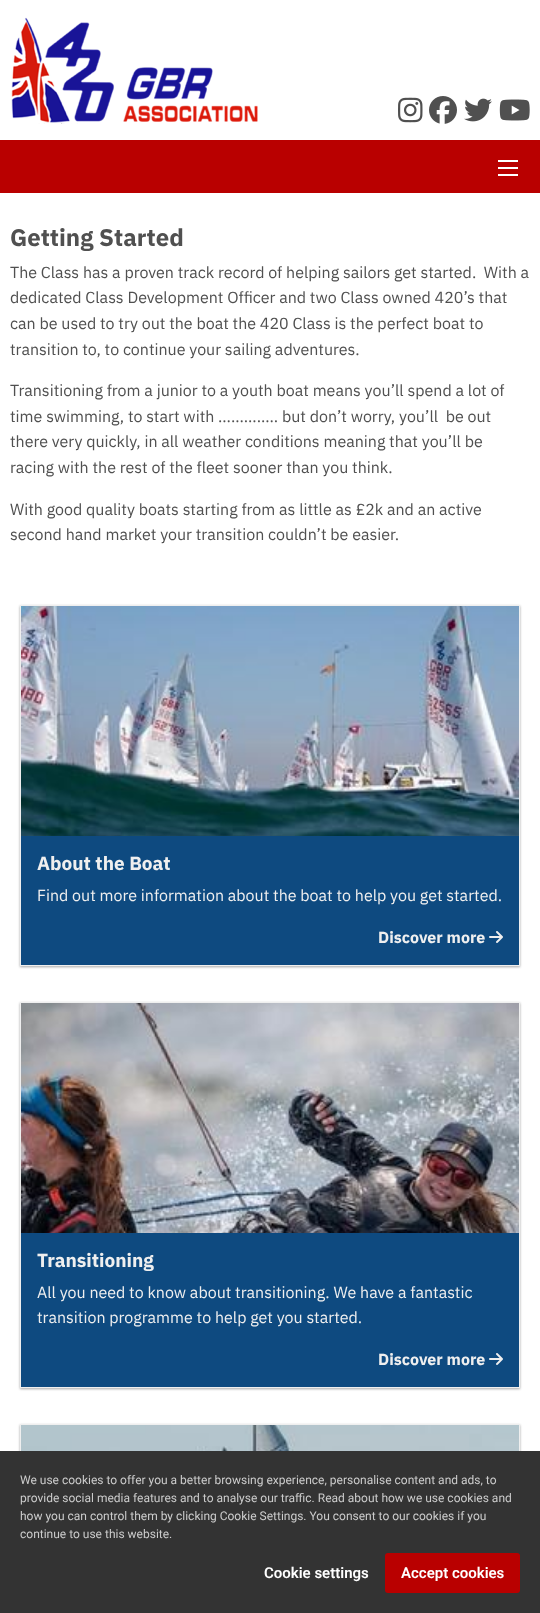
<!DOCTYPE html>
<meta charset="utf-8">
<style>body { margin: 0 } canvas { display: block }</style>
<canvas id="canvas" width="540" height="1613"></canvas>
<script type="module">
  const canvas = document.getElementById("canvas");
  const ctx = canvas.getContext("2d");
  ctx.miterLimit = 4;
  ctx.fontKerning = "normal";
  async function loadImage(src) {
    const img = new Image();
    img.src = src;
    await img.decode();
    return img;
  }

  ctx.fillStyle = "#ffffff";
  ctx.fillRect(0, 0, 540, 1613);
  ctx.drawImage(await loadImage("img1.png"), 10, 17, 248, 107);
  ctx.drawImage(await loadImage("img2.png"), 398, 97, 25, 26);
  ctx.drawImage(await loadImage("img3.png"), 429, 96, 28, 28);
  ctx.drawImage(await loadImage("img4.png"), 464, 98, 28, 24);
  ctx.drawImage(await loadImage("img5.png"), 499, 99, 31, 22);
  ctx.fillStyle = "#b90000";
  ctx.fillRect(0, 140, 540, 53);
  ctx.fillStyle = "#ffffff";
  ctx.fillRect(498, 174, 20, 2);
  ctx.fillRect(498, 167, 20, 2);
  ctx.fillRect(498, 160, 20, 2);
  ctx.font = "bold 24px IBM Plex Sans";
  ctx.fillStyle = "#505050";
  ctx.fillText("Getting Started", 10, 246);
  ctx.font = "16px IBM Plex Sans";
  ctx.fillText("The Class has a proven track record of helping sailors get started.  With a", 10, 278);
  ctx.fillText("dedicated Class Development Officer and two Class owned 420’s that", 10, 303);
  ctx.fillText("can be used to try out the boat the 420 Class is the perfect boat to", 10, 329);
  ctx.fillText("transition to, to continue your sailing adventures.", 10, 355);
  ctx.fillText("Transitioning from a junior to a youth boat means you’ll spend a lot of", 10, 396);
  ctx.fillText("time swimming, to start with ………….. but don’t worry, you’ll  be out", 10, 422);
  ctx.fillText("there very quickly, in all weather conditions meaning that you’ll be", 10, 447);
  ctx.fillText("racing with the rest of the fleet sooner than you think.", 10, 473);
  ctx.fillText("With good quality boats starting from as little as £2k and an active", 10, 515);
  ctx.fillText("second hand market your transition couldn’t be easier.", 10, 540);
  ctx.fillStyle = "rgba(0, 0, 0, 0.24)";
  ctx.filter = "blur(1px)";
  ctx.beginPath();
  ctx.rect(20, 606, 500, 361);
  ctx.fill();
  ctx.filter = "none";
  ctx.fillStyle = "rgba(0, 0, 0, 0.12)";
  ctx.filter = "blur(1.5px)";
  ctx.beginPath();
  ctx.rect(20, 606, 500, 361);
  ctx.fill();
  ctx.filter = "none";
  ctx.fillStyle = "#0e4a80";
  ctx.fillRect(21, 836, 498, 129);
  ctx.strokeStyle = "#efefef";
  ctx.strokeRect(20.5, 605.5, 499, 360);
  ctx.drawImage(await loadImage("img6.png"), 21, 606, 498, 230);
  ctx.font = "bold 19px IBM Plex Sans";
  ctx.fillStyle = "#efefef";
  ctx.fillText("About the Boat", 37, 870);
  ctx.font = "16px IBM Plex Sans";
  ctx.fillText("Find out more information about the boat to help you get started.", 37, 901);
  ctx.font = "bold 16px IBM Plex Sans";
  ctx.fillText("Discover more", 378, 943);
  ctx.drawImage(await loadImage("img7.png"), 489, 931, 14, 12);
  ctx.fillStyle = "rgba(0, 0, 0, 0.24)";
  ctx.filter = "blur(1px)";
  ctx.beginPath();
  ctx.rect(20, 1003, 500, 386);
  ctx.fill();
  ctx.filter = "none";
  ctx.fillStyle = "rgba(0, 0, 0, 0.12)";
  ctx.filter = "blur(1.5px)";
  ctx.beginPath();
  ctx.rect(20, 1003, 500, 386);
  ctx.fill();
  ctx.filter = "none";
  ctx.fillStyle = "#0e4a80";
  ctx.fillRect(21, 1233, 498, 154);
  ctx.strokeRect(20.5, 1002.5, 499, 385);
  ctx.drawImage(await loadImage("img8.png"), 21, 1003, 498, 230);
  ctx.font = "bold 19px IBM Plex Sans";
  ctx.fillStyle = "#efefef";
  ctx.fillText("Transitioning", 37, 1267);
  ctx.font = "16px IBM Plex Sans";
  ctx.fillText("All you need to know about transitioning. We have a fantastic", 37, 1298);
  ctx.fillText("transition programme to help get you started.", 37, 1323);
  ctx.font = "bold 16px IBM Plex Sans";
  ctx.fillText("Discover more", 378, 1365);
  ctx.drawImage(await loadImage("img7.png"), 489, 1353, 14, 12);
  ctx.fillStyle = "rgba(0, 0, 0, 0.24)";
  ctx.filter = "blur(1px)";
  ctx.beginPath();
  ctx.rect(20, 1425, 500, 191);
  ctx.fill();
  ctx.filter = "none";
  ctx.fillStyle = "rgba(0, 0, 0, 0.12)";
  ctx.filter = "blur(1.5px)";
  ctx.beginPath();
  ctx.rect(20, 1425, 500, 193);
  ctx.fill();
  ctx.filter = "none";
  ctx.strokeRect(20.5, 1424.5, 499, 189);
  ctx.drawImage(await loadImage("img9.png"), 21, 1425, 498, 26);
  ctx.fillStyle = "#333333";
  ctx.fillRect(0, 1451, 540, 162);
  ctx.font = "12px Roboto";
  ctx.fillStyle = "#cccccc";
  ctx.fillText("We use cookies to offer you a better browsing experience, personalise content and ads, to", 20, 1484);
  ctx.fillText("provide social media features and to analyse our traffic. Read about how we use cookies and", 20, 1502);
  ctx.fillText("how you can control them by clicking Cookie Settings. You consent to our cookies if you", 20, 1520);
  ctx.fillText("continue to use this website.", 20, 1538);
  ctx.font = "600 15px Roboto";
  ctx.fillStyle = "#ffffff";
  ctx.fillText("Cookie settings", 264, 1578);
  ctx.fillStyle = "#b90000";
  ctx.beginPath();
  ctx.roundRect(385, 1553, 135, 40, 3);
  ctx.fill();
  ctx.fillStyle = "#ffffff";
  ctx.fillText("Accept cookies", 401, 1578);
</script>
